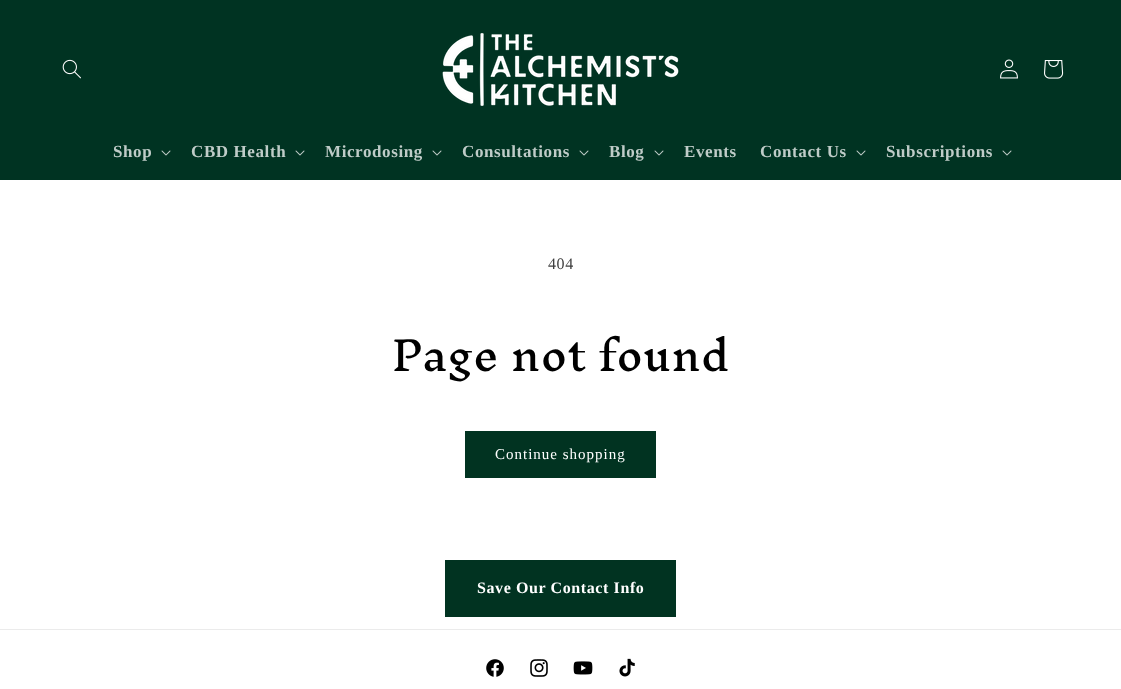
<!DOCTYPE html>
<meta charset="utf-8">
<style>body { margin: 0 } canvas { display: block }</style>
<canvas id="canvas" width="1121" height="689"></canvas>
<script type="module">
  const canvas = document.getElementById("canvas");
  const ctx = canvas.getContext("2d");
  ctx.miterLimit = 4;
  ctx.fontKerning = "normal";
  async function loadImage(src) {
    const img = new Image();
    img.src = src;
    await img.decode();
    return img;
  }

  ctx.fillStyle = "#ffffff";
  ctx.fillRect(0, 0, 1121, 689);
  ctx.fillStyle = "#003322";
  ctx.fillRect(0, 0, 1121, 180);
  ctx.drawImage(await loadImage("img1.png"), 62, 59, 19, 20);
  ctx.drawImage(await loadImage("img2.png"), 442, 33, 237, 73);
  ctx.drawImage(await loadImage("img3.png"), 1000, 59, 18, 20);
  ctx.drawImage(await loadImage("img4.png"), 1044, 60, 20, 19);
  ctx.letterSpacing = "0.6px";
  ctx.font = "bold 17px Liberation Serif";
  ctx.fillStyle = "#bfccc8";
  ctx.fillText("Shop", 113, 157);
  ctx.drawImage(await loadImage("img5.png"), 161, 150, 10, 6);
  ctx.fillText("CBD Health", 191, 157);
  ctx.drawImage(await loadImage("img5.png"), 295, 150, 10, 6);
  ctx.fillText("Microdosing", 325, 157);
  ctx.drawImage(await loadImage("img5.png"), 432, 150, 10, 6);
  ctx.fillText("Consultations", 462, 157);
  ctx.drawImage(await loadImage("img5.png"), 579, 150, 10, 6);
  ctx.fillText("Blog", 609, 157);
  ctx.drawImage(await loadImage("img5.png"), 654, 150, 10, 6);
  ctx.fillText("Events", 684, 157);
  ctx.fillText("Contact Us", 760, 157);
  ctx.drawImage(await loadImage("img5.png"), 856, 150, 10, 6);
  ctx.fillText("Subscriptions", 886, 157);
  ctx.drawImage(await loadImage("img5.png"), 1002, 150, 10, 6);
  ctx.font = "16px Liberation Serif";
  ctx.fillStyle = "#404040";
  ctx.fillText("404", 548, 269);
  ctx.font = "40px Inknut Antiqua";
  ctx.fillStyle = "#000000";
  ctx.fillText("Page not found", 392, 371);
  ctx.fillStyle = "#013321";
  ctx.fillRect(465, 431, 191, 47);
  ctx.letterSpacing = "1px";
  ctx.font = "15px Liberation Serif";
  ctx.fillStyle = "#ffffff";
  ctx.fillText("Continue shopping", 495, 459);
  ctx.fillStyle = "#013321";
  ctx.fillRect(445, 560, 231, 57);
  ctx.letterSpacing = "0.6px";
  ctx.font = "bold 16px Liberation Serif";
  ctx.fillStyle = "#ffffff";
  ctx.fillText("Save Our Contact Info", 477, 593);
  ctx.fillStyle = "#ebebeb";
  ctx.fillRect(0, 629, 1121, 1);
  ctx.drawImage(await loadImage("img6.png"), 486, 659, 18, 18);
  ctx.drawImage(await loadImage("img7.png"), 530, 659, 18, 18);
  ctx.drawImage(await loadImage("img8.png"), 573, 661, 20, 14);
  ctx.drawImage(await loadImage("img9.png"), 619, 658, 16, 19);
</script>
